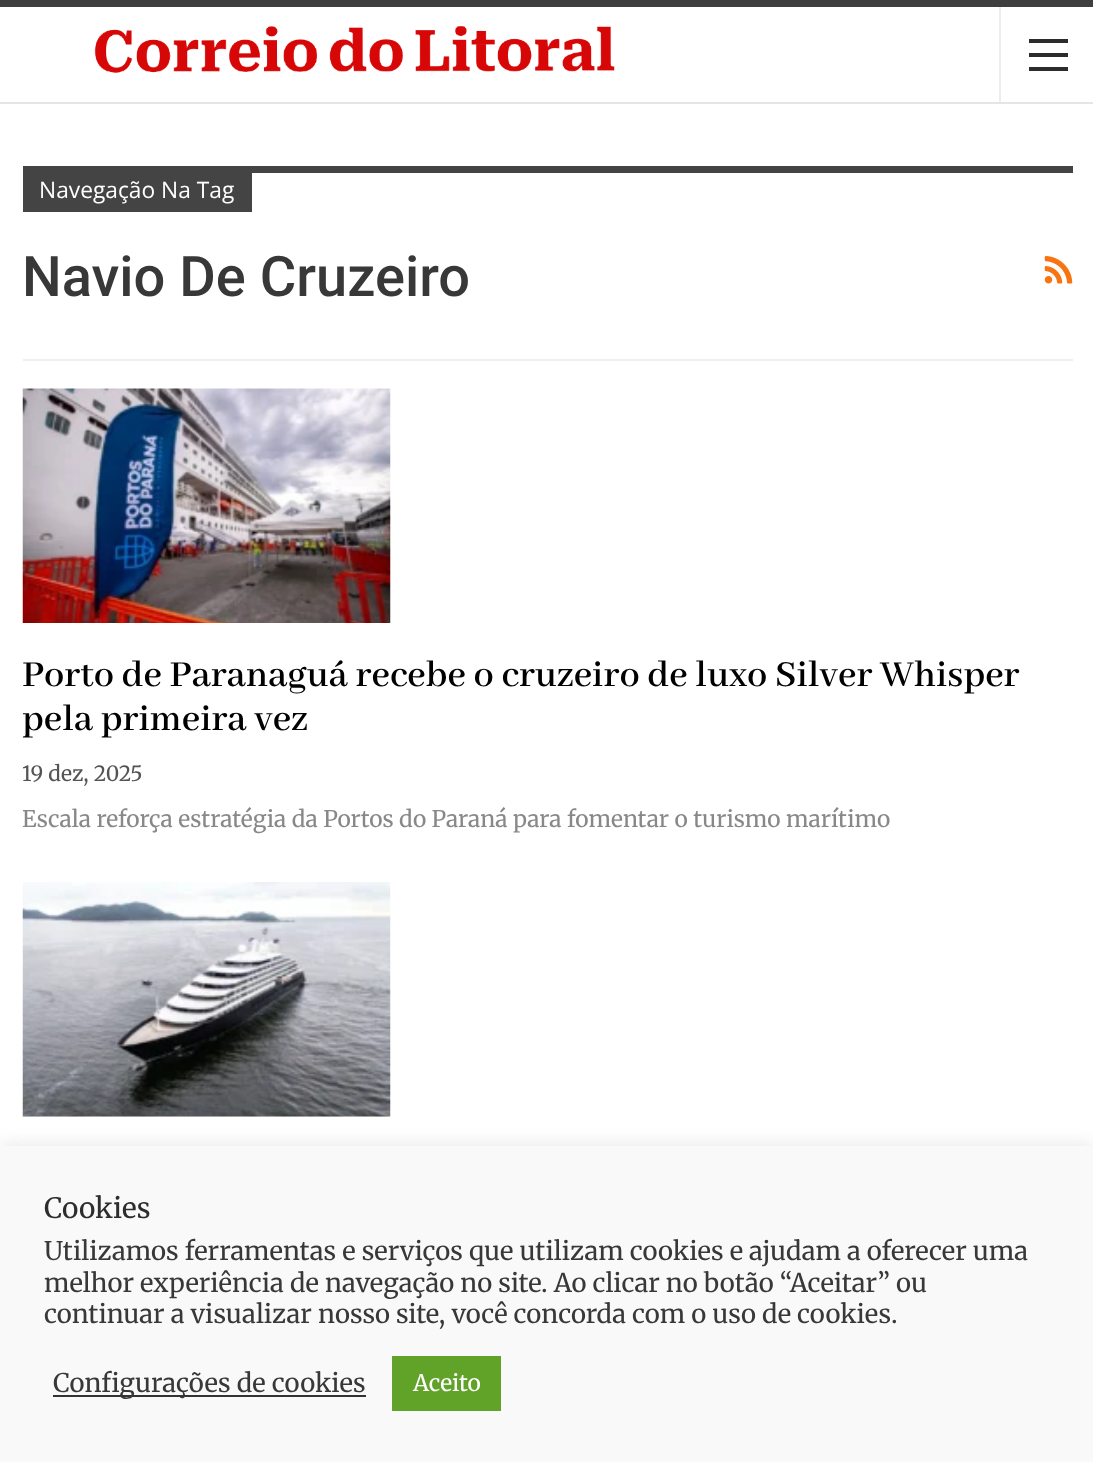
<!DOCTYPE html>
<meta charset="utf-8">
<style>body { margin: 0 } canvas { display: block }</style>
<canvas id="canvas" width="1093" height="1462"></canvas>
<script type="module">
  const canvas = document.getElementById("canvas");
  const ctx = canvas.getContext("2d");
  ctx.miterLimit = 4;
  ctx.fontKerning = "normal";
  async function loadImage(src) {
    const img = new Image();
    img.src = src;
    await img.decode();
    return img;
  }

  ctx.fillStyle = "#3f3f3f";
  ctx.fillRect(0, 0, 1093, 1462);
  ctx.fillStyle = "#ffffff";
  ctx.fillRect(0, 7, 1093, 1139);
  ctx.fillStyle = "#e5e5e5";
  ctx.fillRect(0, 102, 1093, 2);
  ctx.drawImage(await loadImage("img1.png"), 94, 26, 521, 47);
  ctx.fillStyle = "#ededed";
  ctx.fillRect(999, 7, 2, 95);
  ctx.fillStyle = "#2c2c2c";
  ctx.fillRect(1029, 53, 39, 4);
  ctx.fillRect(1029, 39, 39, 4);
  ctx.fillRect(1029, 67, 39, 4);
  ctx.fillStyle = "#f0f0f0";
  ctx.fillRect(23, 359, 1050, 2);
  ctx.fillStyle = "#444444";
  ctx.fillRect(252, 166, 821, 7);
  ctx.fillRect(23, 166, 229, 46);
  ctx.font = "22.75px Open Sans";
  ctx.fillStyle = "#ffffff";
  ctx.fillText("Navegação Na Tag", 39, 198);
  ctx.font = "500 56px Roboto";
  ctx.fillStyle = "#383838";
  ctx.fillText("Navio De Cruzeiro", 22, 296);
  ctx.drawImage(await loadImage("img2.png"), 1044, 256, 29, 28);
  ctx.drawImage(await loadImage("img3.png"), 22, 388, 369, 235);
  ctx.font = "600 40.25px Abhaya Libre SemiBold";
  ctx.fillStyle = "#000000";
  ctx.fillText("Porto de Paranaguá recebe o cruzeiro de luxo Silver Whisper", 22, 686);
  ctx.fillText("pela primeira vez", 22, 730);
  ctx.font = "21px Merriweather";
  ctx.fillStyle = "#545454";
  ctx.fillText("19 dez, 2025", 22, 781);
  ctx.font = "22.75px Merriweather";
  ctx.fillStyle = "#888888";
  ctx.fillText("Escala reforça estratégia da Portos do Paraná para fomentar o turismo marítimo", 22, 827);
  ctx.fillStyle = "#f5f5f5";
  ctx.fillRect(23, 1116, 367, 1);
  ctx.drawImage(await loadImage("img4.png"), 22, 882, 369, 235);
  ctx.fillStyle = "rgba(172, 171, 171, 0.3)";
  ctx.filter = "blur(9px)";
  ctx.beginPath();
  ctx.rect(0, 1145, 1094, 316);
  ctx.fill();
  ctx.filter = "none";
  ctx.fillStyle = "#f9f9f9";
  ctx.fillRect(0, 1146, 1093, 316);
  ctx.font = "28px Merriweather";
  ctx.fillStyle = "#2d2d2d";
  ctx.fillText("Cookies", 44, 1218);
  ctx.font = "25.65px Merriweather";
  ctx.fillStyle = "#383838";
  ctx.fillText("Utilizamos ferramentas e serviços que utilizam cookies e ajudam a oferecer uma", 44, 1260);
  ctx.fillText("melhor experiência de navegação no site. Ao clicar no botão “Aceitar” ou", 44, 1292);
  ctx.fillText("continuar a visualizar nosso site, você concorda com o uso de cookies.", 44, 1323);
  ctx.fillStyle = "#333333";
  ctx.fillRect(53, 1395, 313, 2);
  ctx.fillStyle = "#383838";
  ctx.fillText("Configurações de cookies", 53, 1392);
  ctx.fillStyle = "#61a229";
  ctx.fillRect(392, 1356, 109, 55);
  ctx.font = "22.75px Merriweather";
  ctx.fillStyle = "#ffffff";
  ctx.fillText("Aceito", 413, 1391);
</script>
